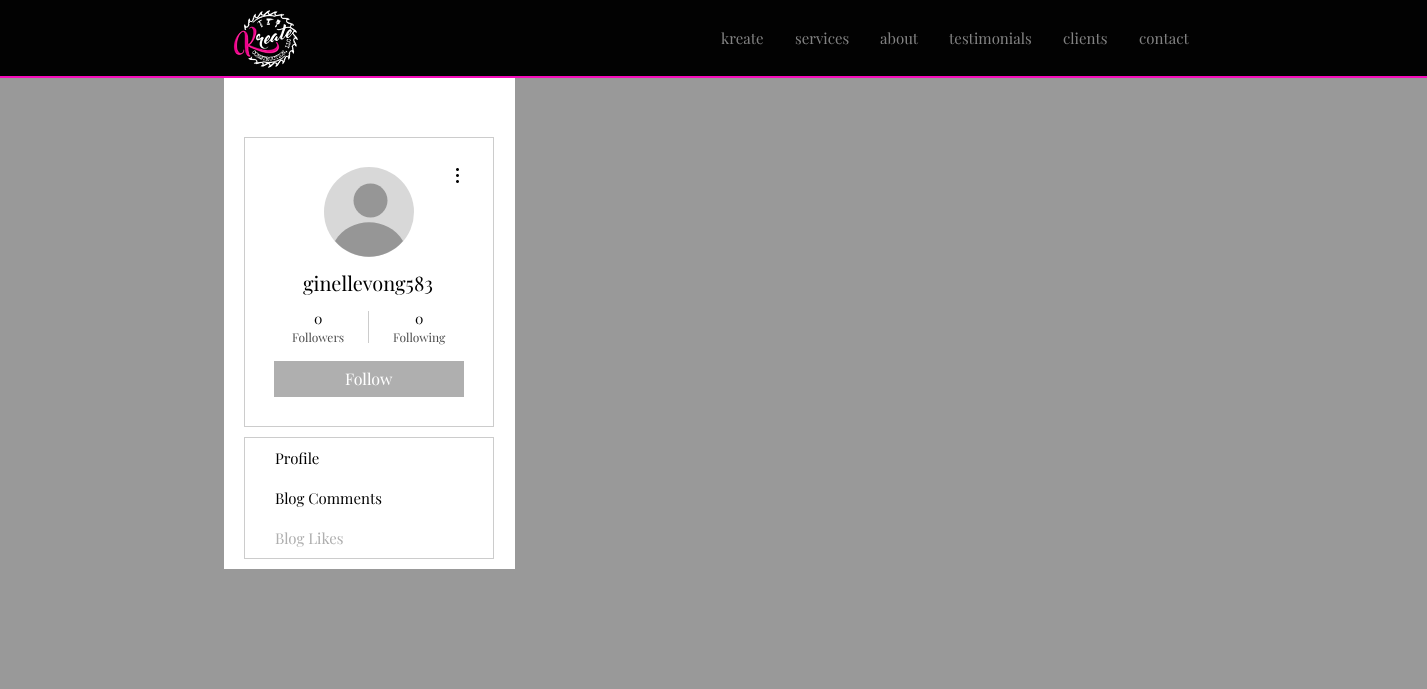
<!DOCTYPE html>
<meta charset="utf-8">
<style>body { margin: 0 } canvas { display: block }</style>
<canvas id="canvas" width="1427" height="689"></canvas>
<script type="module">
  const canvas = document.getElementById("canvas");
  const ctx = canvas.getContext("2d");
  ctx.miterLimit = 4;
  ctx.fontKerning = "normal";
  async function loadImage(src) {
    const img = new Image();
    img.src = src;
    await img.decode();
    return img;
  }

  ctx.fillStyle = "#999999";
  ctx.fillRect(0, 0, 1427, 689);
  ctx.fillStyle = "#020202";
  ctx.fillRect(0, 0, 1427, 76);
  ctx.drawImage(await loadImage("img1.png"), 233, 10, 65, 58);
  ctx.font = "15px Playfair Display";
  ctx.fillStyle = "#828282";
  ctx.fillText("kreate", 721, 44);
  ctx.fillText("services", 795, 44);
  ctx.fillText("about", 880, 44);
  ctx.fillText("testimonials", 949, 44);
  ctx.fillText("clients", 1063, 44);
  ctx.fillText("contact", 1139, 44);
  ctx.fillStyle = "#f40cba";
  ctx.fillRect(0, 76, 1427, 2);
  ctx.fillStyle = "#ffffff";
  ctx.fillRect(224, 78, 291, 491);
  ctx.strokeStyle = "#cccccc";
  ctx.strokeRect(244.5, 137.5, 249, 289);
  ctx.fillStyle = "#d8d8d8";
  ctx.beginPath();
  ctx.arc(369, 212, 45, 0, Math.PI * 2);
  ctx.fill();
  ctx.fillStyle = "#969696";
  ctx.beginPath();
  ctx.arc(370.5, 200.5, 17, 0, Math.PI * 2);
  ctx.fill();
  ctx.beginPath();
  ctx.moveTo(403, 241);
  ctx.bezierCurveTo(385, 262, 353, 262, 335, 241);
  ctx.bezierCurveTo(350, 216, 388, 216, 403, 241);
  ctx.closePath();
  ctx.fill();
  ctx.drawImage(await loadImage("img2.png"), 456, 168, 3, 15);
  ctx.font = "20px Playfair Display";
  ctx.fillStyle = "#000000";
  ctx.fillText("ginellevong583", 303, 291);
  ctx.font = "14px Playfair Display";
  ctx.fillText("0", 314, 324);
  ctx.font = "12px Playfair Display";
  ctx.fillStyle = "#4d4d4d";
  ctx.fillText("Followers", 292, 342);
  ctx.fillStyle = "#cccccc";
  ctx.fillRect(368, 311, 1, 32);
  ctx.font = "14px Playfair Display";
  ctx.fillStyle = "#000000";
  ctx.fillText("0", 415, 324);
  ctx.font = "12px Playfair Display";
  ctx.fillStyle = "#4d4d4d";
  ctx.fillText("Following", 393, 342);
  ctx.fillStyle = "#afafaf";
  ctx.fillRect(274, 361, 190, 36);
  ctx.font = "16px Playfair Display";
  ctx.fillStyle = "#ffffff";
  ctx.fillText("Follow", 345, 385);
  ctx.strokeRect(244.5, 437.5, 249, 121);
  ctx.font = "15px Playfair Display";
  ctx.fillStyle = "#000000";
  ctx.fillText("Profile", 275, 464);
  ctx.fillText("Blog Comments", 275, 504);
  ctx.fillStyle = "#afafaf";
  ctx.fillText("Blog Likes", 275, 544);
</script>
